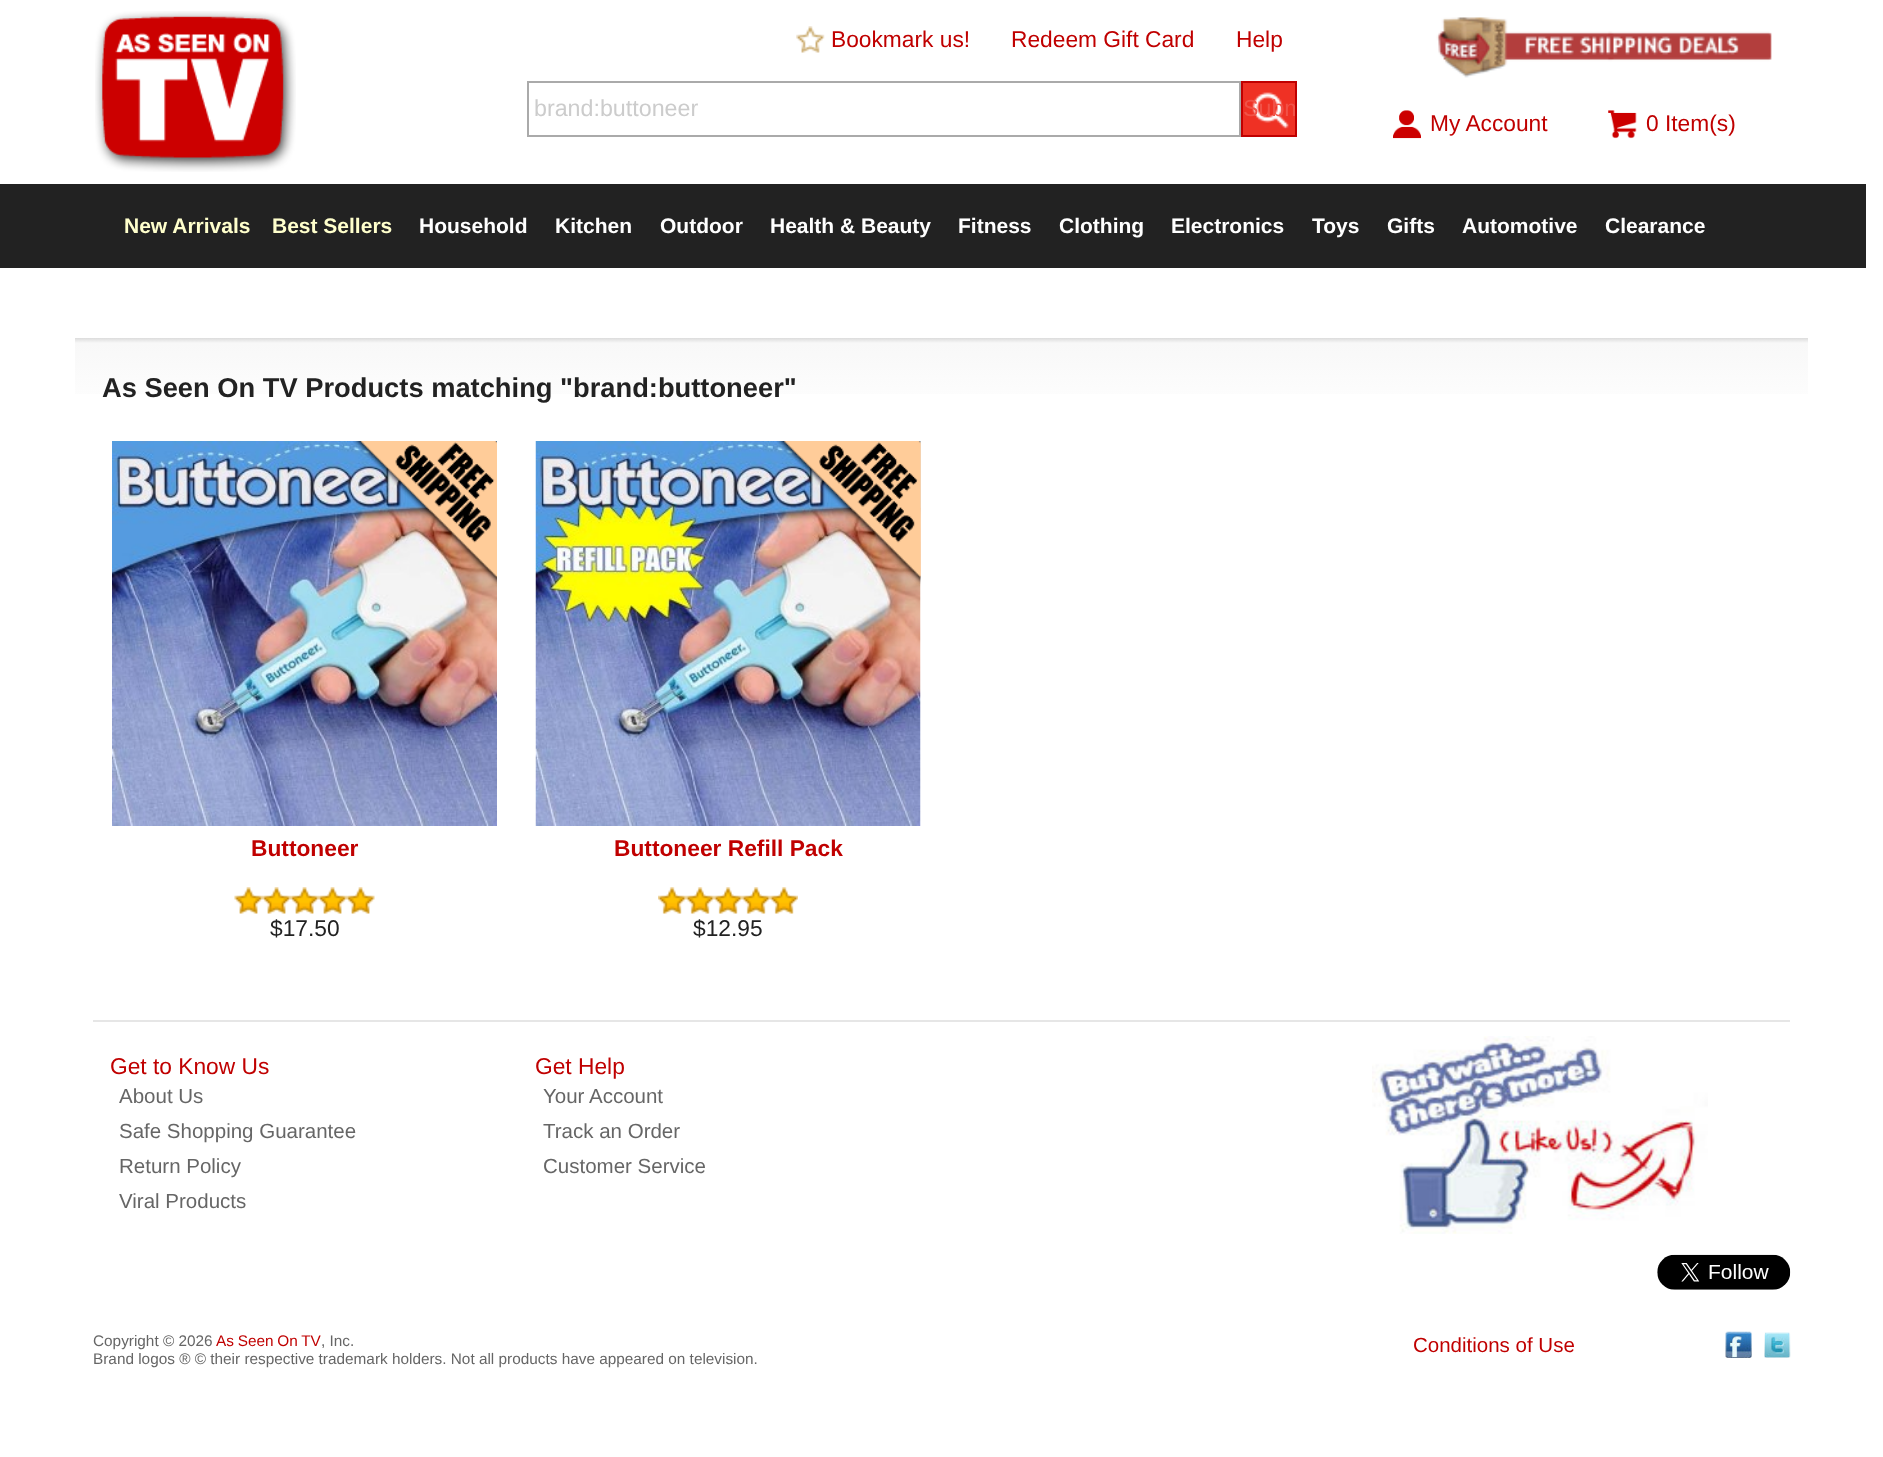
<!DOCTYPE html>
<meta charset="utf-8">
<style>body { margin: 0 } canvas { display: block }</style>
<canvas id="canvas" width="1883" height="1457"></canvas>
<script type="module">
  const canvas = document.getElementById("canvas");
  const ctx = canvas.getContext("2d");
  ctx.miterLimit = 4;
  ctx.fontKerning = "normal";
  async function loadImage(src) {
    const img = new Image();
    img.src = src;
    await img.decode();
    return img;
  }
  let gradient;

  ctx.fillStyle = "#ffffff";
  ctx.fillRect(0, 0, 1883, 1457);
  ctx.drawImage(await loadImage("img1.png"), 95, 11, 201, 161);
  ctx.drawImage(await loadImage("img2.png"), 796, 26, 29, 27);
  ctx.font = "22.75px Liberation Sans";
  ctx.fillStyle = "#c00000";
  ctx.fillText("Bookmark us!", 831, 47);
  ctx.fillText("Redeem Gift Card", 1011, 47);
  ctx.fillText("Help", 1236, 47);
  ctx.strokeStyle = "#aaaaaa";
  ctx.lineWidth = 2;
  ctx.strokeRect(528, 82, 712, 54);
  ctx.font = "23.25px Liberation Sans";
  ctx.fillStyle = "#cccccc";
  ctx.fillText("brand:buttoneer", 534, 116);
  ctx.drawImage(await loadImage("img3.png"), 1243, 83, 52, 52);
  ctx.strokeStyle = "#c00000";
  ctx.strokeRect(1242, 82, 54, 54);
  ctx.save();
  ctx.beginPath();
  ctx.rect(1243, 82, 52, 53);
  ctx.clip();
  ctx.fillStyle = "#f15247";
  ctx.fillText("Subm", 1243, 116);
  ctx.restore();
  ctx.drawImage(await loadImage("img4.png"), 1436, 17, 336, 61);
  ctx.drawImage(await loadImage("img5.png"), 1393, 110, 28, 29);
  ctx.font = "22.75px Liberation Sans";
  ctx.fillStyle = "#c00000";
  ctx.fillText("My Account", 1430, 131);
  ctx.drawImage(await loadImage("img6.png"), 1608, 110, 29, 29);
  ctx.fillText("0 Item(s)", 1646, 131);
  ctx.fillStyle = "#222222";
  ctx.fillRect(0, 184, 1866, 84);
  ctx.font = "bold 21px Liberation Sans";
  ctx.fillStyle = "#ffffcc";
  ctx.fillText("New Arrivals", 124, 233);
  ctx.fillText("Best Sellers", 272, 233);
  ctx.fillStyle = "#ffffff";
  ctx.fillText("Household", 419, 233);
  ctx.fillText("Kitchen", 555, 233);
  ctx.fillText("Outdoor", 660, 233);
  ctx.fillText("Health & Beauty", 770, 233);
  ctx.fillText("Fitness", 958, 233);
  ctx.fillText("Clothing", 1059, 233);
  ctx.fillText("Electronics", 1171, 233);
  ctx.fillText("Toys", 1312, 233);
  ctx.fillText("Gifts", 1387, 233);
  ctx.fillText("Automotive", 1462, 233);
  ctx.fillText("Clearance", 1605, 233);
  gradient = ctx.createLinearGradient(942, 338, 942, 422);
  gradient.addColorStop(0, "#dcdcdc");
  gradient.addColorStop(0.06, "#f8f8f8");
  gradient.addColorStop(1, "#ffffff");
  ctx.fillStyle = gradient;
  ctx.fillRect(75, 338, 1733, 56);
  ctx.font = "bold 27.3px Liberation Sans";
  ctx.fillStyle = "#222222";
  ctx.fillText("As Seen On TV Products matching \"brand:buttoneer\"", 102, 397);
  ctx.drawImage(await loadImage("img7.png"), 112, 441, 385, 385);
  ctx.drawImage(await loadImage("img8.png"), 353, 441, 144, 143);
  ctx.font = "bold 22.75px Liberation Sans";
  ctx.fillStyle = "#c00000";
  ctx.fillText("Buttoneer", 251, 856);
  ctx.drawImage(await loadImage("img9.png"), 234, 887, 141, 27);
  ctx.font = "22.75px Liberation Sans";
  ctx.fillStyle = "#222222";
  ctx.fillText("$17.50", 270, 936);
  ctx.drawImage(await loadImage("img10.png"), 535, 441, 386, 385);
  ctx.drawImage(await loadImage("img11.png"), 777, 441, 144, 143);
  ctx.font = "bold 22.75px Liberation Sans";
  ctx.fillStyle = "#c00000";
  ctx.fillText("Buttoneer Refill Pack", 614, 856);
  ctx.drawImage(await loadImage("img12.png"), 658, 887, 140, 27);
  ctx.font = "22.75px Liberation Sans";
  ctx.fillStyle = "#222222";
  ctx.fillText("$12.95", 693, 936);
  ctx.fillStyle = "#e6e6e6";
  ctx.fillRect(93, 1020, 1697, 2);
  ctx.fillStyle = "#c00000";
  ctx.fillText("Get to Know Us", 110, 1074);
  ctx.font = "20.5px Liberation Sans";
  ctx.fillStyle = "#666666";
  ctx.fillText("About Us", 119, 1103);
  ctx.fillText("Safe Shopping Guarantee", 119, 1138);
  ctx.fillText("Return Policy", 119, 1173);
  ctx.fillText("Viral Products", 119, 1208);
  ctx.font = "22.75px Liberation Sans";
  ctx.fillStyle = "#c00000";
  ctx.fillText("Get Help", 535, 1074);
  ctx.font = "20.5px Liberation Sans";
  ctx.fillStyle = "#666666";
  ctx.fillText("Your Account", 543, 1103);
  ctx.fillText("Track an Order", 543, 1138);
  ctx.fillText("Customer Service", 543, 1173);
  ctx.drawImage(await loadImage("img13.png"), 1372, 1036, 336, 198);
  ctx.drawImage(await loadImage("img14.png"), 1657, 1254, 134, 36);
  ctx.font = "15.35px Liberation Sans";
  ctx.fillText("Copyright © 2026", 93, 1346);
  ctx.wordSpacing = "-0.5px";
  ctx.fillStyle = "#c00000";
  ctx.fillText("As Seen On TV", 216, 1346);
  ctx.wordSpacing = "0px";
  ctx.fillStyle = "#666666";
  ctx.fillText(", Inc.", 321, 1346);
  ctx.fillText("Brand logos ® © their respective trademark holders. Not all products have appeared on television.", 93, 1364);
  ctx.font = "20.5px Liberation Sans";
  ctx.fillStyle = "#c00000";
  ctx.fillText("Conditions of Use", 1413, 1352);
  ctx.drawImage(await loadImage("img15.png"), 1725, 1331, 27, 27);
  ctx.drawImage(await loadImage("img16.png"), 1764, 1332, 27, 26);
</script>
